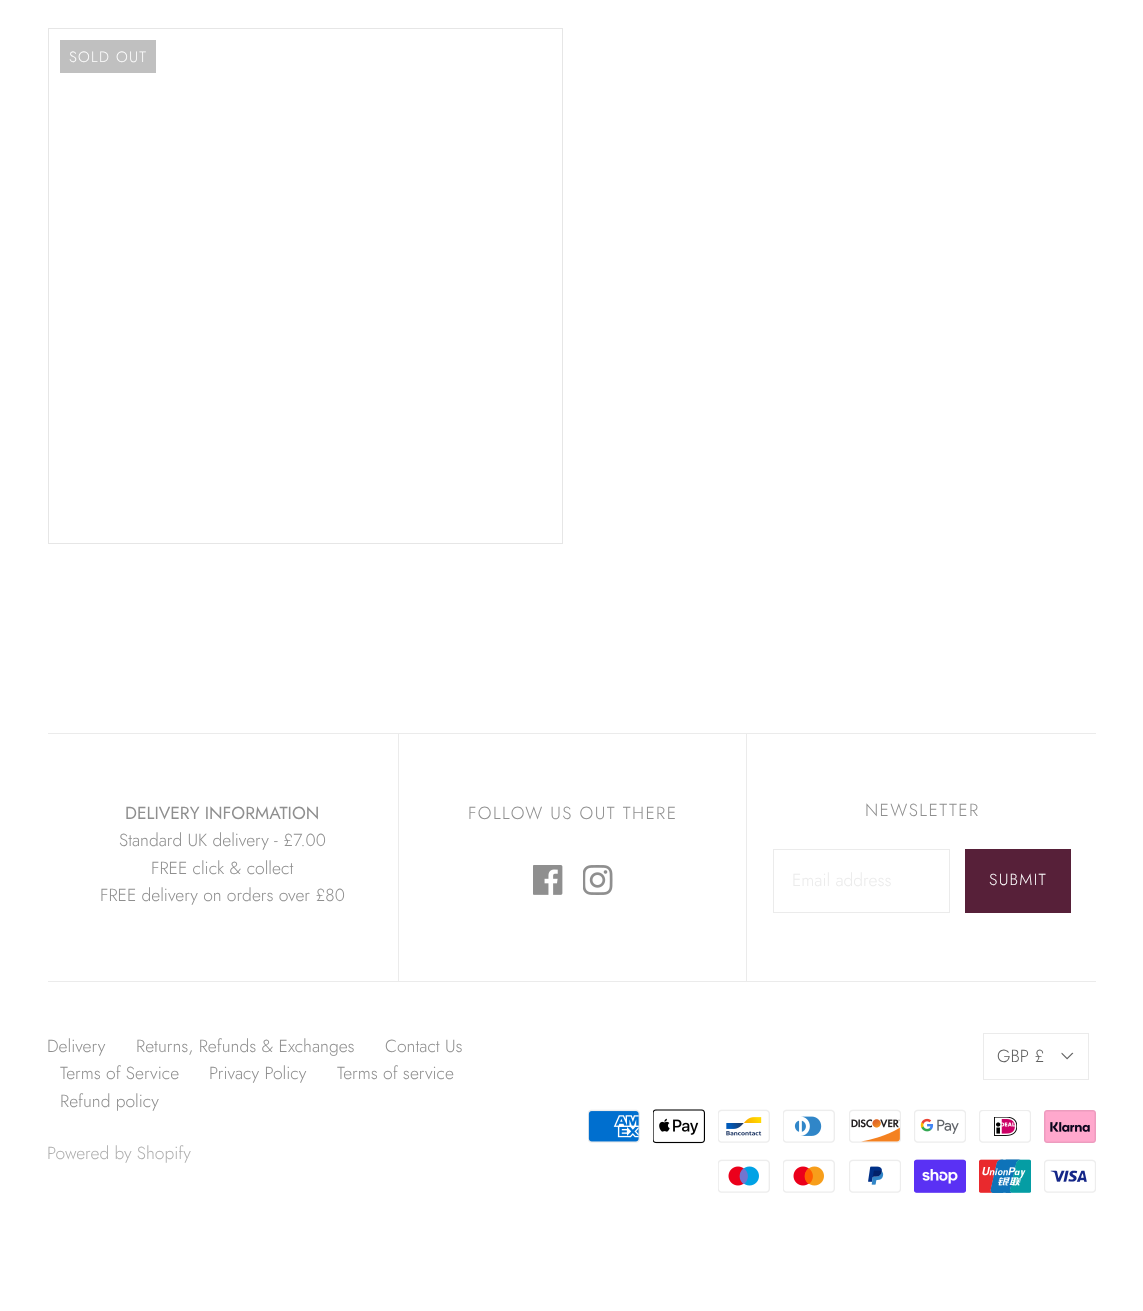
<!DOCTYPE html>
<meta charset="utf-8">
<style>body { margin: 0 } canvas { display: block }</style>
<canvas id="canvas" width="1143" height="1311"></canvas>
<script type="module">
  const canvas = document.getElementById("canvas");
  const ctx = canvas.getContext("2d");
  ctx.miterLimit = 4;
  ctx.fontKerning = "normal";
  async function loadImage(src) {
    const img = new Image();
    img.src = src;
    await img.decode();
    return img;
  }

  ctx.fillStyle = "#ffffff";
  ctx.fillRect(0, 0, 1143, 1311);
  ctx.fillStyle = "#c0c0c0";
  ctx.fillRect(60, 40, 96, 33);
  ctx.strokeStyle = "#e6e6e6";
  ctx.strokeRect(48.5, 28.5, 514, 515);
  ctx.letterSpacing = "1.25px";
  ctx.font = "300 15px Jost";
  ctx.fillStyle = "#fefefe";
  ctx.fillText("SOLD OUT", 69, 62);
  ctx.fillStyle = "#ebebeb";
  ctx.fillRect(48, 733, 1048, 1);
  ctx.fillRect(48, 981, 1048, 1);
  ctx.letterSpacing = "0px";
  ctx.font = "17.5px Jost";
  ctx.fillStyle = "#8f8f8f";
  ctx.fillText("DELIVERY INFORMATION", 125, 819);
  ctx.font = "300 17.5px Jost";
  ctx.fillText("Standard UK delivery - £7.00", 119, 846);
  ctx.fillText("FREE click & collect", 151, 874);
  ctx.fillText("FREE delivery on orders over £80", 100, 901);
  ctx.fillStyle = "#ebebeb";
  ctx.fillRect(398, 734, 1, 247);
  ctx.letterSpacing = "1.4px";
  ctx.fillStyle = "#8f8f8f";
  ctx.fillText("FOLLOW US OUT THERE", 468, 819);
  ctx.drawImage(await loadImage("img1.png"), 533, 865, 30, 30);
  ctx.drawImage(await loadImage("img2.png"), 583, 865, 30, 30);
  ctx.fillStyle = "#ebebeb";
  ctx.fillRect(746, 734, 1, 247);
  ctx.fillStyle = "#8f8f8f";
  ctx.fillText("NEWSLETTER", 865, 816);
  ctx.strokeStyle = "#ebebeb";
  ctx.strokeRect(773.5, 849.5, 176, 63);
  ctx.letterSpacing = "0px";
  ctx.fillStyle = "#ebebeb";
  ctx.fillText("Email address", 792, 886);
  ctx.fillStyle = "#572039";
  ctx.fillRect(965, 849, 106, 64);
  ctx.letterSpacing = "1.25px";
  ctx.font = "300 16px Jost";
  ctx.fillStyle = "#fefefe";
  ctx.fillText("SUBMIT", 989, 885);
  ctx.letterSpacing = "0px";
  ctx.font = "300 17.5px Jost";
  ctx.fillStyle = "#8f8f8f";
  ctx.fillText("Delivery", 47, 1052);
  ctx.fillText("Returns, Refunds & Exchanges", 136, 1052);
  ctx.fillText("Contact Us", 385, 1052);
  ctx.fillText("Terms of Service", 60, 1079);
  ctx.fillText("Privacy Policy", 209, 1079);
  ctx.fillText("Terms of service", 337, 1079);
  ctx.fillText("Refund policy", 60, 1107);
  ctx.fillStyle = "#afafaf";
  ctx.fillText("Powered by Shopify", 47, 1159);
  ctx.strokeRect(983.5, 1033.5, 105, 46);
  ctx.fillStyle = "#606060";
  ctx.fillText("GBP £", 997, 1062);
  ctx.drawImage(await loadImage("img3.png"), 1061, 1052, 13, 8);
  ctx.drawImage(await loadImage("img4.png"), 588, 1109, 52, 34);
  ctx.drawImage(await loadImage("img5.png"), 653, 1109, 52, 35);
  ctx.drawImage(await loadImage("img6.png"), 718, 1109, 52, 34);
  ctx.drawImage(await loadImage("img7.png"), 783, 1109, 52, 34);
  ctx.drawImage(await loadImage("img8.png"), 849, 1109, 52, 34);
  ctx.drawImage(await loadImage("img9.png"), 914, 1109, 52, 34);
  ctx.drawImage(await loadImage("img10.png"), 979, 1110, 52, 33);
  ctx.drawImage(await loadImage("img11.png"), 1044, 1110, 52, 33);
  ctx.drawImage(await loadImage("img12.png"), 718, 1159, 52, 34);
  ctx.drawImage(await loadImage("img13.png"), 783, 1159, 52, 34);
  ctx.drawImage(await loadImage("img14.png"), 849, 1159, 52, 34);
  ctx.drawImage(await loadImage("img15.png"), 914, 1159, 52, 34);
  ctx.drawImage(await loadImage("img16.png"), 979, 1159, 52, 34);
  ctx.drawImage(await loadImage("img17.png"), 1044, 1159, 52, 34);
</script>
